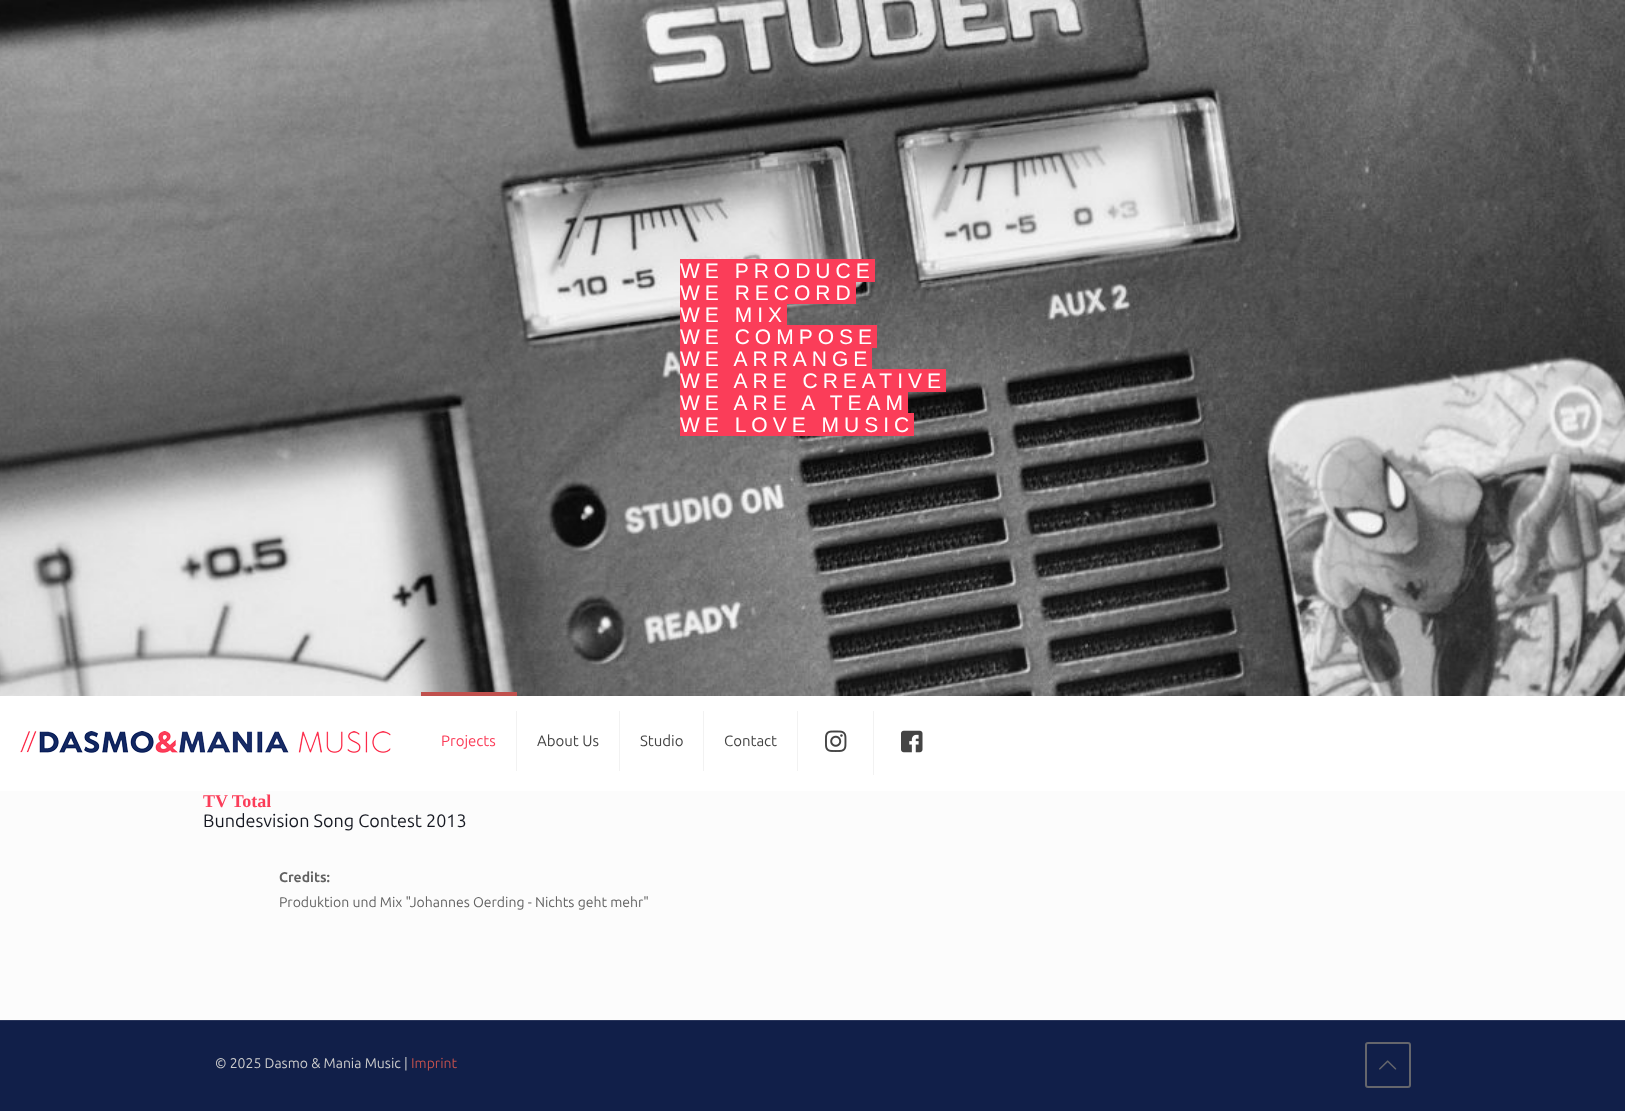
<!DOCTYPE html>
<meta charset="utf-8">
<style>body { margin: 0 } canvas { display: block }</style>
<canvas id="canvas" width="1625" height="1111"></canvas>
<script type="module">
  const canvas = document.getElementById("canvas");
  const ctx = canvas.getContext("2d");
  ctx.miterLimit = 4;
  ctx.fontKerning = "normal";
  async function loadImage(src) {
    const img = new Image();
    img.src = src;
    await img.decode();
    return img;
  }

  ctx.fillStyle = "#fcfcfc";
  ctx.fillRect(0, 0, 1625, 1111);
  ctx.drawImage(await loadImage("img1.png"), 0, 0, 1625, 696);
  ctx.fillStyle = "#fb3d59";
  ctx.fillRect(680, 259, 195, 23);
  ctx.letterSpacing = "5px";
  ctx.font = "21px Liberation Sans";
  ctx.fillStyle = "#ffffff";
  ctx.fillText("WE PRODUCE", 680, 278);
  ctx.fillStyle = "#fb3d59";
  ctx.fillRect(680, 282, 176, 22);
  ctx.fillStyle = "#ffffff";
  ctx.fillText("WE RECORD", 680, 300);
  ctx.fillStyle = "#fb3d59";
  ctx.fillRect(680, 304, 107, 21);
  ctx.fillStyle = "#ffffff";
  ctx.fillText("WE MIX", 680, 322);
  ctx.fillStyle = "#fb3d59";
  ctx.fillRect(680, 325, 197, 23);
  ctx.fillStyle = "#ffffff";
  ctx.fillText("WE COMPOSE", 680, 344);
  ctx.fillStyle = "#fb3d59";
  ctx.fillRect(680, 348, 192, 21);
  ctx.fillStyle = "#ffffff";
  ctx.fillText("WE ARRANGE", 680, 366);
  ctx.fillStyle = "#fb3d59";
  ctx.fillRect(680, 369, 266, 23);
  ctx.fillStyle = "#ffffff";
  ctx.fillText("WE ARE CREATIVE", 680, 388);
  ctx.fillStyle = "#fb3d59";
  ctx.fillRect(680, 392, 228, 21);
  ctx.fillStyle = "#ffffff";
  ctx.fillText("WE ARE A TEAM", 680, 410);
  ctx.fillStyle = "#fb3d59";
  ctx.fillRect(680, 413, 234, 23);
  ctx.fillStyle = "#ffffff";
  ctx.fillText("WE LOVE MUSIC", 680, 432);
  ctx.fillRect(0, 696, 1625, 95);
  ctx.drawImage(await loadImage("img2.png"), 20, 731, 371, 22);
  ctx.fillStyle = "#c0504d";
  ctx.fillRect(421, 692, 96, 4);
  ctx.fillStyle = "#f2f2f2";
  ctx.fillRect(516, 711, 1, 60);
  ctx.letterSpacing = "0px";
  ctx.font = "15px Ubuntu";
  ctx.fillStyle = "#fb3d59";
  ctx.fillText("Projects", 441, 746);
  ctx.fillStyle = "#f2f2f2";
  ctx.fillRect(619, 711, 1, 60);
  ctx.fillStyle = "#444444";
  ctx.fillText("About Us", 537, 746);
  ctx.fillStyle = "#f2f2f2";
  ctx.fillRect(703, 711, 1, 60);
  ctx.fillStyle = "#444444";
  ctx.fillText("Studio", 640, 746);
  ctx.fillStyle = "#f2f2f2";
  ctx.fillRect(797, 711, 1, 60);
  ctx.fillStyle = "#444444";
  ctx.fillText("Contact", 724, 746);
  ctx.fillStyle = "#f2f2f2";
  ctx.fillRect(873, 711, 1, 64);
  ctx.drawImage(await loadImage("img3.png"), 825, 730, 22, 22);
  ctx.drawImage(await loadImage("img4.png"), 901, 730, 22, 23);
  ctx.font = "bold 18px Liberation Serif";
  ctx.fillStyle = "#fb3d59";
  ctx.fillText("TV Total", 203, 807);
  ctx.font = "18px Ubuntu";
  ctx.fillStyle = "#161922";
  ctx.fillText("Bundesvision Song Contest 2013", 203, 827);
  ctx.font = "bold 14px Ubuntu";
  ctx.fillStyle = "#626262";
  ctx.fillText("Credits:", 279, 882);
  ctx.font = "14px Ubuntu";
  ctx.fillText("Produktion und Mix \"Johannes Oerding - Nichts geht mehr\"", 279, 907);
  ctx.fillStyle = "#111f49";
  ctx.fillRect(0, 1021, 1625, 90);
  ctx.fillStyle = "#29355b";
  ctx.fillRect(0, 1020, 1625, 1);
  ctx.fillStyle = "#cccccc";
  ctx.fillText("© 2025 Dasmo & Mania Music |", 215, 1068);
  ctx.fillStyle = "#c0504d";
  ctx.fillText("Imprint", 411, 1068);
  ctx.beginPath();
  ctx.roundRect(1366, 1043, 44, 44, 2);
  ctx.strokeStyle = "#65666c";
  ctx.lineWidth = 2;
  ctx.stroke();
  ctx.drawImage(await loadImage("img5.png"), 1379, 1060, 18, 10);
</script>
